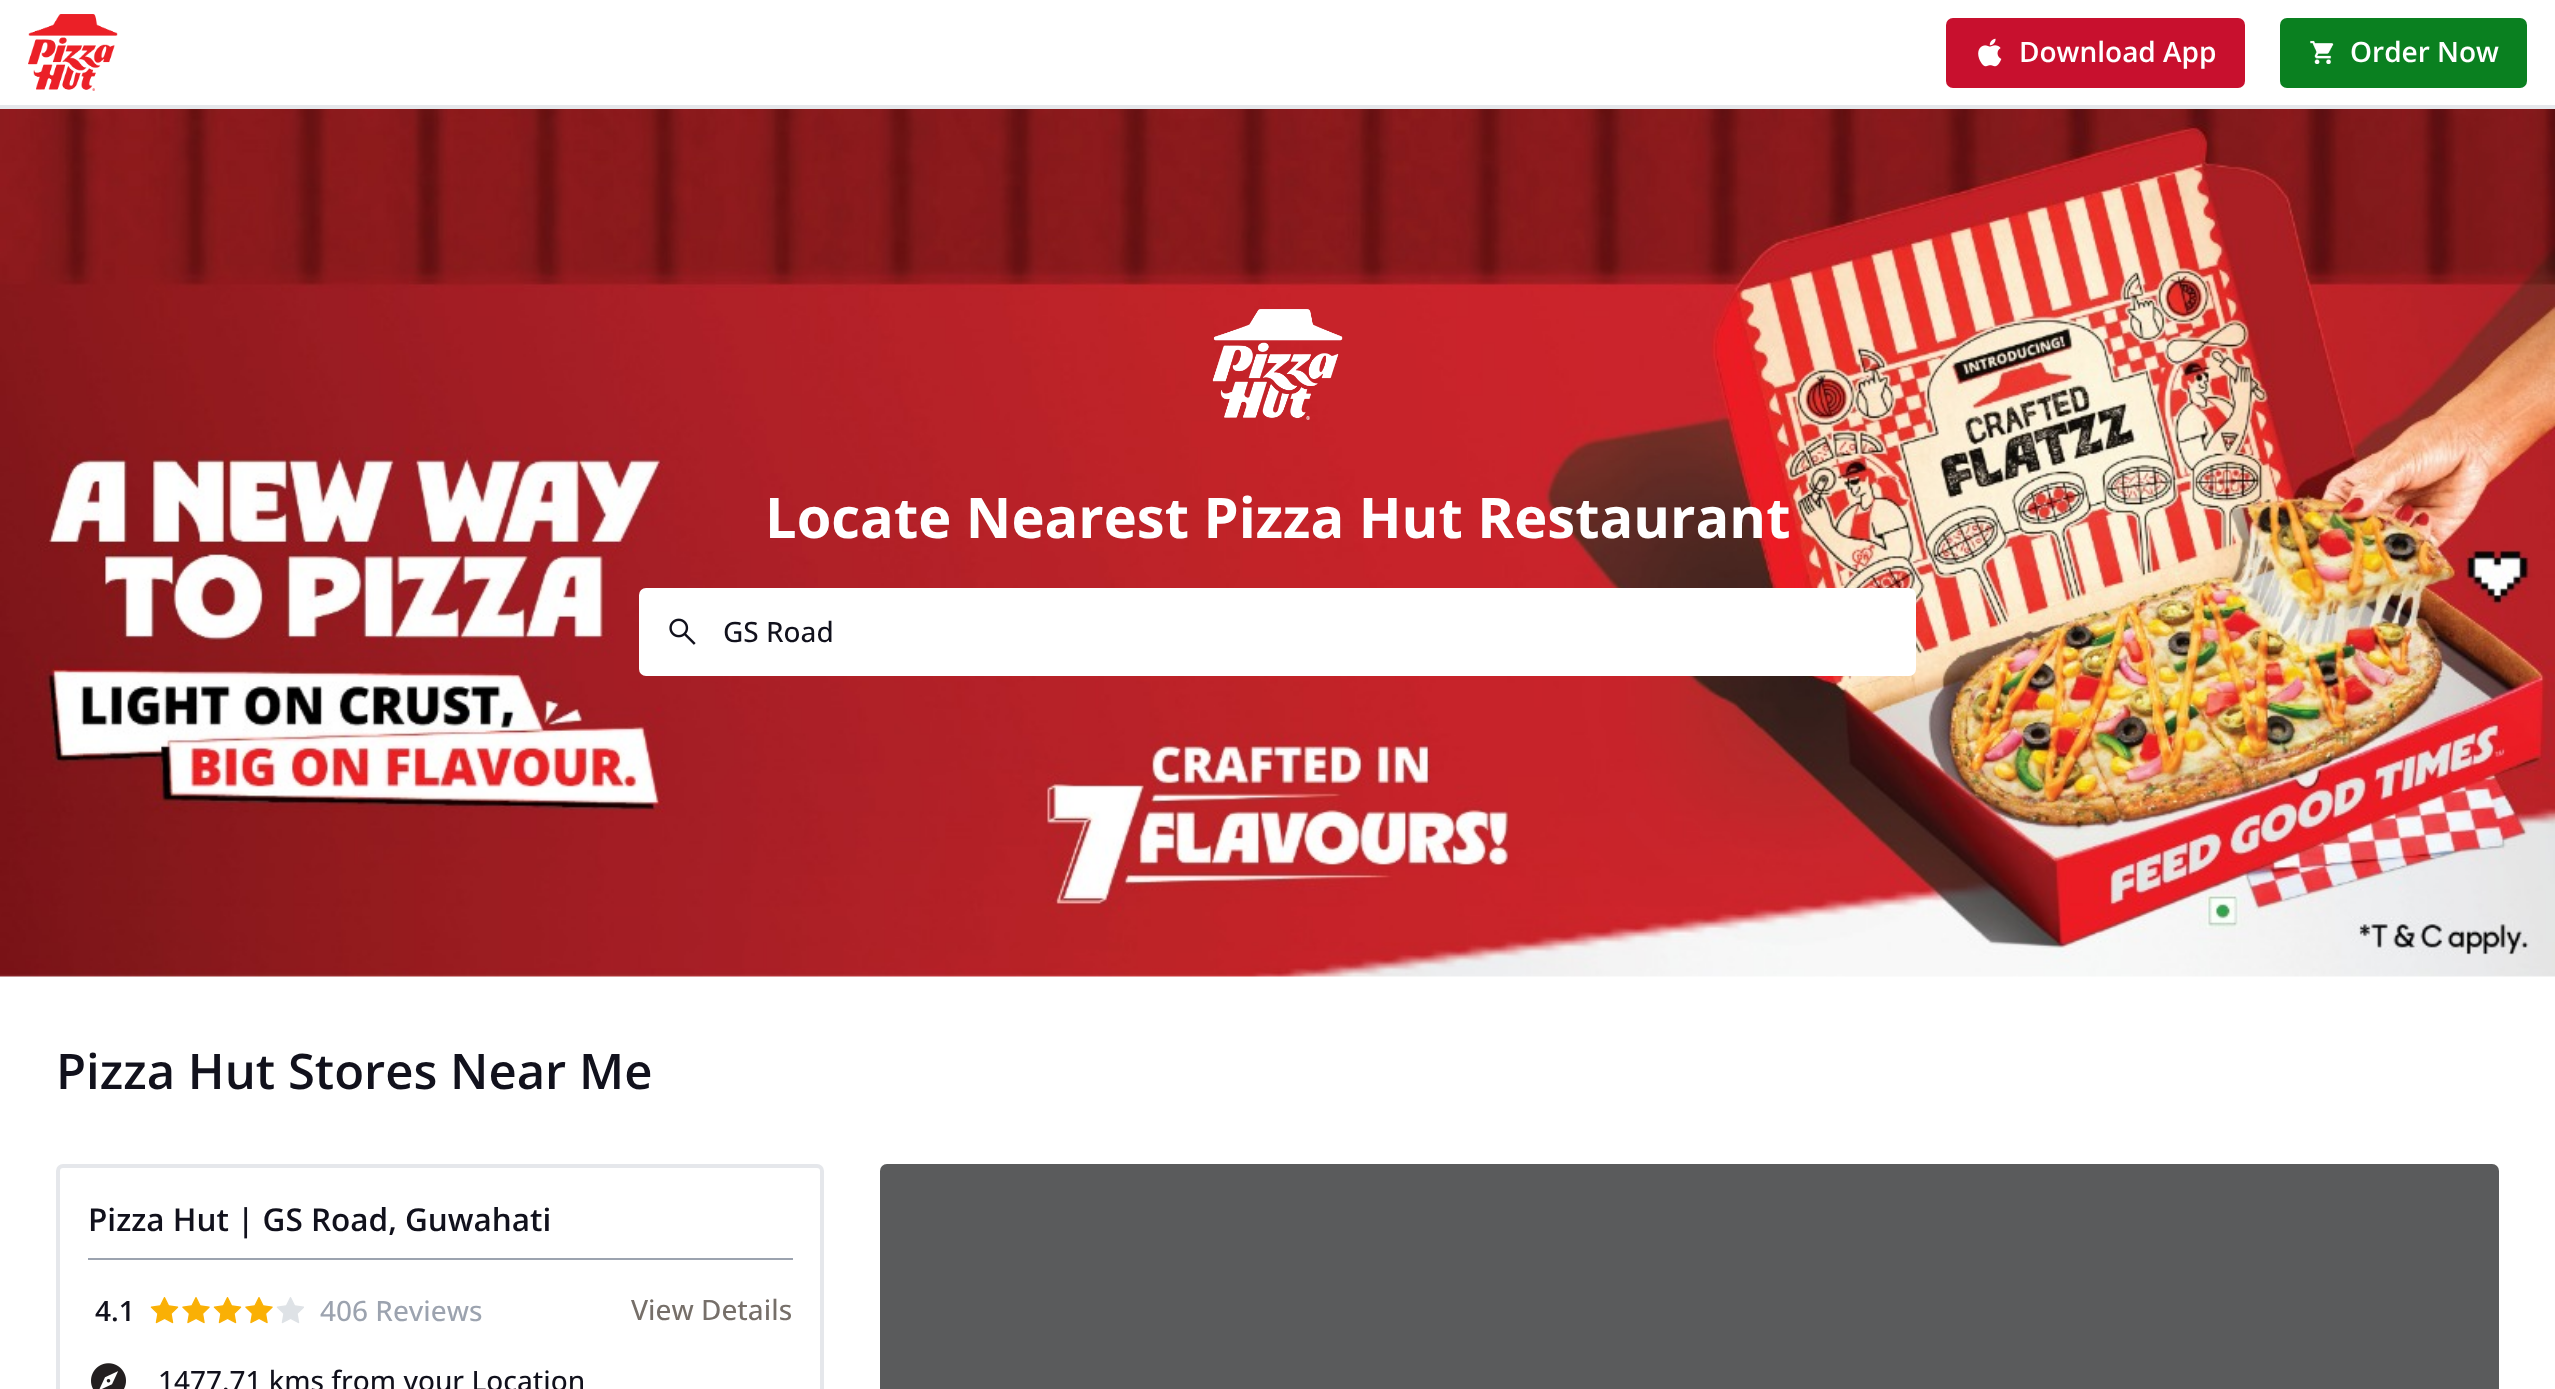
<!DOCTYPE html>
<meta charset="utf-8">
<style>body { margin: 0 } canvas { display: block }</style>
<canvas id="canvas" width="2555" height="1389"></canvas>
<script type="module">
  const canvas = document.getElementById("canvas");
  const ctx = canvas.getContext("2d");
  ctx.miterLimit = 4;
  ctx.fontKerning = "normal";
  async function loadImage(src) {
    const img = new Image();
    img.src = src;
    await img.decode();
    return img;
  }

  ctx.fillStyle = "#ffffff";
  ctx.fillRect(0, 0, 2555, 1389);
  ctx.fillStyle = "#e5e7eb";
  ctx.fillRect(0, 105, 2555, 4);
  ctx.drawImage(await loadImage("img1.png"), 28, 14, 90, 77);
  ctx.fillStyle = "#c8102e";
  ctx.beginPath();
  ctx.roundRect(1946, 18, 299, 70, 7);
  ctx.fill();
  ctx.drawImage(await loadImage("img2.png"), 1978, 38, 24, 29);
  ctx.font = "600 28px Open Sans";
  ctx.fillStyle = "#ffffff";
  ctx.fillText("Download App", 2019, 62);
  ctx.fillStyle = "#0a8020";
  ctx.beginPath();
  ctx.roundRect(2280, 18, 247, 70, 7);
  ctx.fill();
  ctx.drawImage(await loadImage("img3.png"), 2310, 40, 24, 24);
  ctx.fillStyle = "#ffffff";
  ctx.fillText("Order Now", 2350, 62);
  ctx.drawImage(await loadImage("img4.png"), 0, 109, 2555, 868);
  ctx.drawImage(await loadImage("img5.png"), 1212, 309, 131, 111);
  ctx.font = "bold 56px Open Sans";
  ctx.fillText("Locate Nearest Pizza Hut Restaurant", 765, 538);
  ctx.beginPath();
  ctx.roundRect(639, 588, 1277, 88, 7);
  ctx.fill();
  ctx.drawImage(await loadImage("img6.png"), 669, 618, 27, 27);
  ctx.font = "500 28px Open Sans";
  ctx.fillStyle = "#11111c";
  ctx.fillText("GS Road", 723, 642);
  ctx.font = "600 49px Open Sans";
  ctx.fillText("Pizza Hut Stores Near Me", 56, 1089);
  ctx.beginPath();
  ctx.roundRect(58, 1166, 764, 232, 5);
  ctx.strokeStyle = "#e5e7eb";
  ctx.lineWidth = 4;
  ctx.stroke();
  ctx.font = "600 31.5px Open Sans";
  ctx.fillText("Pizza Hut | GS Road, Guwahati", 88, 1231);
  ctx.fillStyle = "#9ca3af";
  ctx.fillRect(88, 1258, 705, 2);
  ctx.font = "600 28px Open Sans";
  ctx.fillStyle = "#11111c";
  ctx.fillText("4.1", 95, 1321);
  ctx.drawImage(await loadImage("img7.png"), 150, 1297, 29, 27);
  ctx.drawImage(await loadImage("img8.png"), 182, 1297, 28, 27);
  ctx.drawImage(await loadImage("img7.png"), 213, 1297, 29, 27);
  ctx.drawImage(await loadImage("img8.png"), 245, 1297, 28, 27);
  ctx.drawImage(await loadImage("img9.png"), 276, 1297, 28, 27);
  ctx.font = "500 28px Open Sans";
  ctx.fillStyle = "#9ca3af";
  ctx.fillText("406 Reviews", 320, 1321);
  ctx.fillStyle = "#766f69";
  ctx.fillText("View Details", 631, 1320);
  ctx.drawImage(await loadImage("img10.png"), 91, 1363, 35, 26);
  ctx.fillStyle = "#11111c";
  ctx.fillText("1477.71 kms from your Location", 158, 1391);
  ctx.fillStyle = "#e5e3df";
  ctx.beginPath();
  ctx.roundRect(880, 1164, 1619, 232, 7);
  ctx.fill();
  ctx.fillStyle = "rgba(32, 33, 36, 0.7)";
  ctx.beginPath();
  ctx.roundRect(880, 1164, 1619, 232, 7);
  ctx.fill();
</script>
